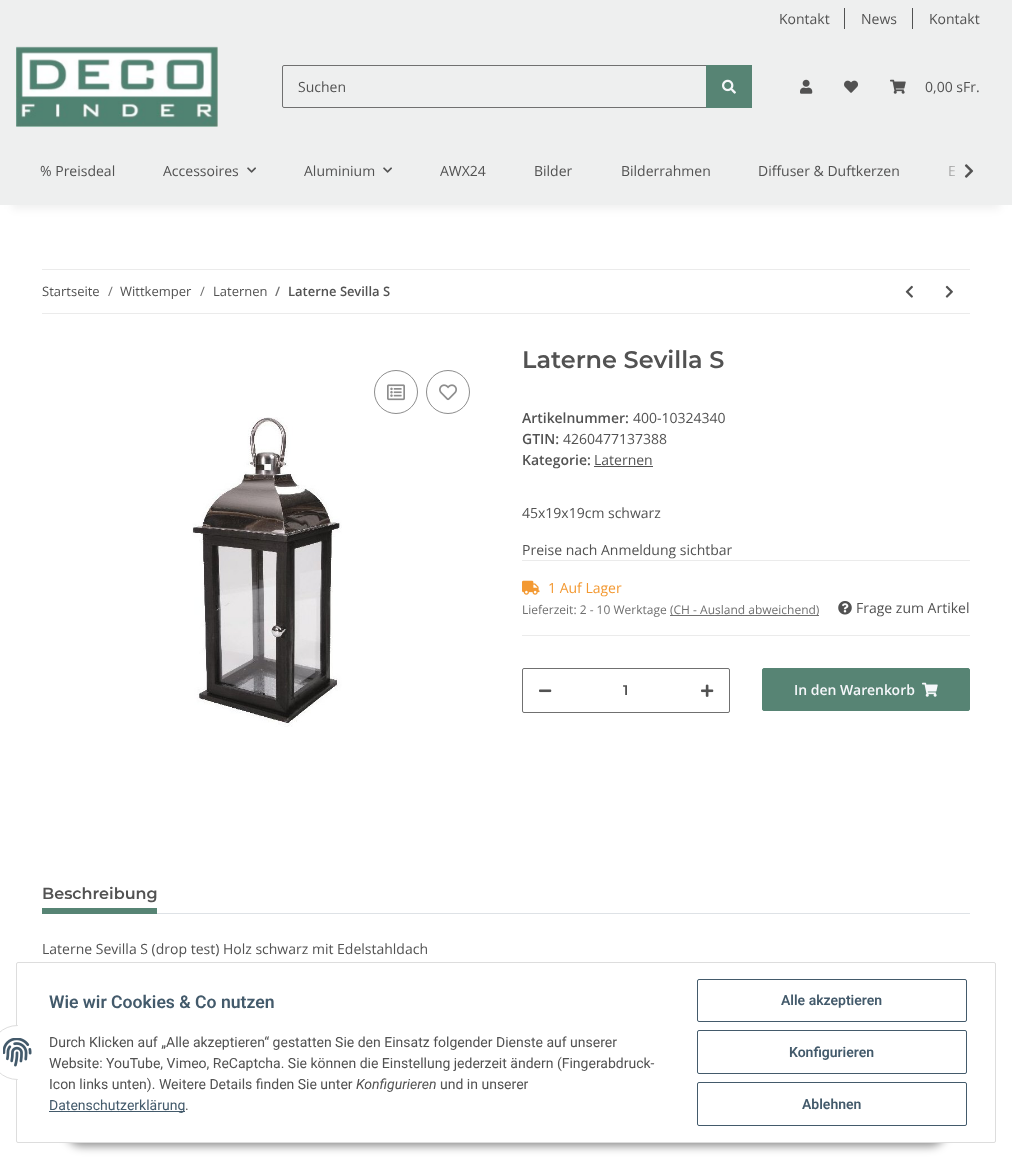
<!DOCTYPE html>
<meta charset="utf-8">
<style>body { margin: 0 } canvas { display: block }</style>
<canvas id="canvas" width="1012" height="1175"></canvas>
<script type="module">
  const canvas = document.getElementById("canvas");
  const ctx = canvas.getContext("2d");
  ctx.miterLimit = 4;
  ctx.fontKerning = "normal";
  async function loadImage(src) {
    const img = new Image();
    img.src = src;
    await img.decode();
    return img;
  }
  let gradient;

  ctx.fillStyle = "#ffffff";
  ctx.fillRect(0, 0, 1012, 1175);
  ctx.fillStyle = "rgba(0, 0, 0, 0.06)";
  ctx.filter = "blur(4.5px)";
  ctx.beginPath();
  ctx.rect(12, 28, 988, 181);
  ctx.fill();
  ctx.filter = "none";
  ctx.fillStyle = "#eeefef";
  ctx.fillRect(0, 0, 1012, 205);
  ctx.font = "14px Open Sans";
  ctx.fillStyle = "#525252";
  ctx.fillText("Kontakt", 779, 24);
  ctx.fillRect(844, 8, 1, 21);
  ctx.fillText("News", 861, 24);
  ctx.fillRect(912, 8, 1, 21);
  ctx.fillText("Kontakt", 929, 24);
  ctx.drawImage(await loadImage("img1.png"), 16, 46, 202, 81);
  ctx.beginPath();
  ctx.roundRect(282.5, 65.5, 424, 42, [1.5, 0, 0, 1.5]);
  ctx.strokeStyle = "#707070";
  ctx.stroke();
  ctx.fillText("Suchen", 298, 92);
  ctx.fillStyle = "#578474";
  ctx.fillRect(706, 65, 46, 43);
  ctx.drawImage(await loadImage("img2.png"), 722, 79, 14, 15);
  ctx.drawImage(await loadImage("img3.png"), 800, 79, 13, 15);
  ctx.drawImage(await loadImage("img4.png"), 844, 80, 14, 13);
  ctx.drawImage(await loadImage("img5.png"), 890, 79, 16, 15);
  ctx.fillStyle = "#525252";
  ctx.fillText("0,00 sFr.", 925, 92);
  ctx.fillText("% Preisdeal", 40, 176);
  ctx.fillText("Accessoires", 163, 176);
  ctx.drawImage(await loadImage("img6.png"), 247, 167, 9, 6);
  ctx.fillText("Aluminium", 304, 176);
  ctx.drawImage(await loadImage("img6.png"), 383, 167, 9, 6);
  ctx.fillText("AWX24", 440, 176);
  ctx.fillText("Bilder", 534, 176);
  ctx.fillText("Bilderrahmen", 621, 176);
  ctx.fillText("Diffuser & Duftkerzen", 758, 176);
  ctx.fillText("E", 948, 176);
  gradient = ctx.createLinearGradient(932, 171, 980, 171);
  gradient.addColorStop(0, "rgba(238, 239, 239, 0.01)");
  gradient.addColorStop(0.7, "#eeefef");
  ctx.fillStyle = gradient;
  ctx.fillRect(949, 166, 7, 10);
  ctx.drawImage(await loadImage("img7.png"), 964, 164, 10, 14);
  ctx.fillStyle = "#ebebeb";
  ctx.fillRect(42, 269, 928, 1);
  ctx.fillRect(42, 313, 928, 1);
  ctx.font = "13px Open Sans";
  ctx.fillStyle = "#525252";
  ctx.fillText("Startseite", 42, 296);
  ctx.fillStyle = "#707070";
  ctx.fillText("/", 108, 296);
  ctx.fillStyle = "#525252";
  ctx.fillText("Wittkemper", 120, 296);
  ctx.fillStyle = "#707070";
  ctx.fillText("/", 200, 296);
  ctx.fillStyle = "#525252";
  ctx.fillText("Laternen", 213, 296);
  ctx.font = "600 13px Open Sans";
  ctx.fillStyle = "#707070";
  ctx.fillText("/", 275, 296);
  ctx.fillStyle = "#525252";
  ctx.fillText("Laterne Sevilla S", 288, 296);
  ctx.drawImage(await loadImage("img8.png"), 905, 285, 8, 13);
  ctx.drawImage(await loadImage("img9.png"), 945, 285, 8, 13);
  ctx.beginPath();
  ctx.arc(396, 392, 21.5, 0, Math.PI * 2);
  ctx.strokeStyle = "#8d8d8d";
  ctx.stroke();
  ctx.drawImage(await loadImage("img10.png"), 387, 384, 18, 17);
  ctx.beginPath();
  ctx.arc(448, 392, 21.5, 0, Math.PI * 2);
  ctx.stroke();
  ctx.drawImage(await loadImage("img11.png"), 439, 384, 18, 17);
  ctx.drawImage(await loadImage("img12.png"), 192, 417, 150, 310);
  ctx.font = "600 24px Montserrat";
  ctx.fillText("Laterne Sevilla S", 522, 368);
  ctx.font = "600 14px Open Sans";
  ctx.fillText("Artikelnummer:", 522, 423);
  ctx.font = "14px Open Sans";
  ctx.fillText("400-10324340", 633, 423);
  ctx.font = "600 14px Open Sans";
  ctx.fillText("GTIN:", 522, 444);
  ctx.font = "14px Open Sans";
  ctx.fillText("4260477137388", 563, 444);
  ctx.font = "600 14px Open Sans";
  ctx.fillText("Kategorie:", 522, 465);
  ctx.font = "14px Open Sans";
  ctx.fillText("Laternen", 594, 465);
  ctx.fillRect(594, 466, 59, 1);
  ctx.fillText("45x19x19cm schwarz", 522, 518);
  ctx.fillText("Preise nach Anmeldung sichtbar", 522, 555);
  ctx.fillStyle = "#ebebeb";
  ctx.fillRect(522, 560, 448, 1);
  ctx.fillRect(522, 635, 448, 1);
  ctx.drawImage(await loadImage("img13.png"), 522, 580, 18, 15);
  ctx.fillStyle = "#f39932";
  ctx.fillText("1 Auf Lager", 548, 593);
  ctx.font = "12px Open Sans";
  ctx.fillStyle = "#707070";
  ctx.fillText("Lieferzeit: 2 - 10 Werktage", 522, 614);
  ctx.fillRect(670, 615, 149, 1);
  ctx.fillText("(CH - Ausland abweichend)", 670, 614);
  ctx.drawImage(await loadImage("img14.png"), 838, 601, 14, 14);
  ctx.font = "14px Open Sans";
  ctx.fillStyle = "#525252";
  ctx.fillText("Frage zum Artikel", 856, 613);
  ctx.beginPath();
  ctx.roundRect(522.5, 668.5, 207, 44, 1.5);
  ctx.strokeStyle = "#707070";
  ctx.stroke();
  ctx.drawImage(await loadImage("img15.png"), 539, 689, 13, 4);
  ctx.font = "600 14px Montserrat";
  ctx.fillText("1", 623, 695);
  ctx.drawImage(await loadImage("img16.png"), 701, 684, 13, 13);
  ctx.fillStyle = "#578474";
  ctx.beginPath();
  ctx.roundRect(762.5, 668.5, 207, 42, 1.5);
  ctx.fill();
  ctx.strokeStyle = "#578474";
  ctx.stroke();
  ctx.font = "600 14px Open Sans";
  ctx.fillStyle = "#f5f7fa";
  ctx.fillText("In den Warenkorb", 794, 695);
  ctx.drawImage(await loadImage("img17.png"), 922, 682, 16, 15);
  ctx.fillStyle = "#dee2e6";
  ctx.fillRect(157, 913, 813, 1);
  ctx.font = "600 16px Montserrat";
  ctx.fillStyle = "#525252";
  ctx.fillText("Beschreibung", 42, 899);
  ctx.fillStyle = "#578474";
  ctx.fillRect(42, 908, 115, 6);
  ctx.font = "14px Open Sans";
  ctx.fillStyle = "#525252";
  ctx.fillText("Laterne Sevilla S (drop test) Holz schwarz mit Edelstahldach", 42, 954);
  ctx.fillStyle = "rgba(0, 0, 0, 0.45)";
  ctx.filter = "blur(5px)";
  ctx.beginPath();
  ctx.roundRect(66, 1114, 880, 32, 16);
  ctx.fill();
  ctx.filter = "none";
  ctx.fillStyle = "#ffffff";
  ctx.beginPath();
  ctx.roundRect(16.5, 962.5, 979, 180, 1.5);
  ctx.fill();
  ctx.strokeStyle = "#dddddd";
  ctx.stroke();
  ctx.beginPath();
  ctx.arc(17.5, 1052.5, 27, 0, Math.PI * 2);
  ctx.fill();
  ctx.stroke();
  ctx.fillRect(18, 1025, 27, 55);
  ctx.drawImage(await loadImage("img18.png"), 3, 1038, 29, 29);
  ctx.font = "600 17.6px Roboto";
  ctx.fillStyle = "#435a6b";
  ctx.fillText("Wie wir Cookies & Co nutzen", 49, 1008);
  ctx.font = "14px Roboto";
  ctx.fillStyle = "#525252";
  ctx.fillText("Durch Klicken auf „Alle akzeptieren“ gestatten Sie den Einsatz folgender Dienste auf unserer", 49, 1047);
  ctx.fillText("Website: YouTube, Vimeo, ReCaptcha. Sie können die Einstellung jederzeit ändern (Fingerabdruck-", 49, 1068);
  ctx.fillText("Icon links unten). Weitere Details finden Sie unter", 49, 1089);
  ctx.font = "italic 14px Roboto";
  ctx.fillText("Konfigurieren", 356, 1089);
  ctx.font = "14px Roboto";
  ctx.fillText("und in unserer", 440, 1089);
  ctx.fillStyle = "#435a6b";
  ctx.fillRect(49, 1111, 136, 1);
  ctx.fillText("Datenschutzerklärung", 49, 1110);
  ctx.fillStyle = "#525252";
  ctx.fillText(".", 185, 1110);
  ctx.beginPath();
  ctx.roundRect(697.5, 979.5, 269, 42, 1.5);
  ctx.strokeStyle = "#435a6b";
  ctx.stroke();
  ctx.font = "600 14px Roboto";
  ctx.fillStyle = "#435a6b";
  ctx.fillText("Alle akzeptieren", 781, 1005);
  ctx.beginPath();
  ctx.roundRect(697.5, 1030.5, 269, 43, 1.5);
  ctx.stroke();
  ctx.fillText("Konfigurieren", 789, 1057);
  ctx.beginPath();
  ctx.roundRect(697.5, 1082.5, 269, 43, 1.5);
  ctx.stroke();
  ctx.fillText("Ablehnen", 802, 1109);
</script>
